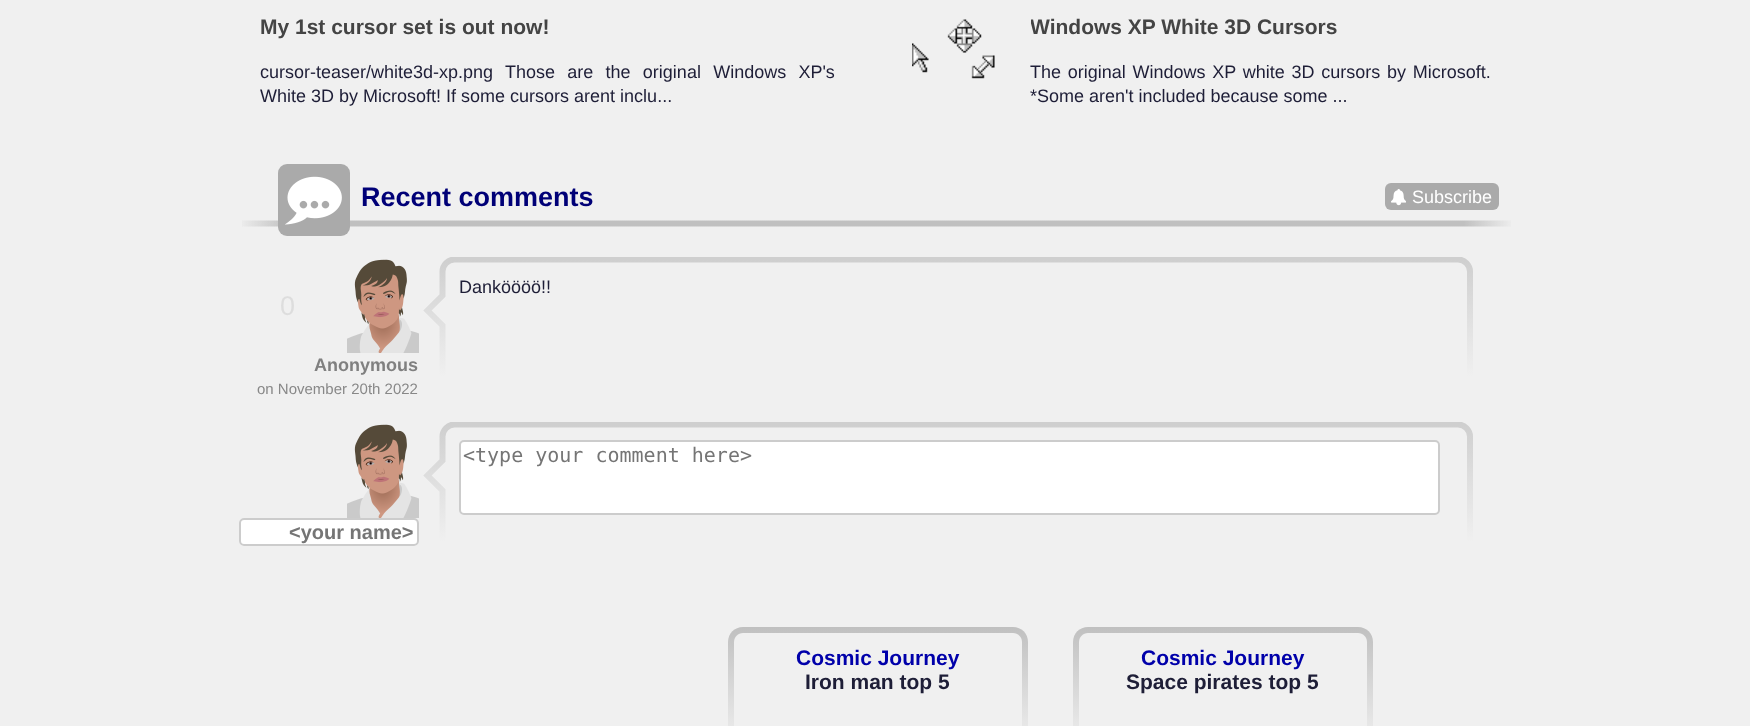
<!DOCTYPE html>
<meta charset="utf-8">
<style>body { margin: 0 } canvas { display: block }</style>
<canvas id="canvas" width="1750" height="726"></canvas>
<script type="module">
  const canvas = document.getElementById("canvas");
  const ctx = canvas.getContext("2d");
  ctx.miterLimit = 4;
  ctx.fontKerning = "normal";
  async function loadImage(src) {
    const img = new Image();
    img.src = src;
    await img.decode();
    return img;
  }
  let gradient;

  ctx.fillStyle = "#f0f0f0";
  ctx.fillRect(0, 0, 1750, 726);
  ctx.font = "bold 21px Liberation Sans";
  ctx.fillStyle = "#444444";
  ctx.fillText("My 1st cursor set is out now!", 260, 34);
  ctx.wordSpacing = "7.25px";
  ctx.font = "18px Liberation Sans";
  ctx.fillStyle = "#1e1e37";
  ctx.fillText("cursor-teaser/white3d-xp.png Those are the original Windows XP's", 260, 78);
  ctx.wordSpacing = "0px";
  ctx.fillText("White 3D by Microsoft! If some cursors arent inclu...", 260, 102);
  ctx.drawImage(await loadImage("img1.png"), 912, 19, 83, 60);
  ctx.save();
  ctx.beginPath();
  ctx.rect(1031, 0, 460, 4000);
  ctx.clip();
  ctx.font = "bold 21px Liberation Sans";
  ctx.fillStyle = "#444444";
  ctx.fillText("Windows XP White 3D Cursors", 1030, 34);
  ctx.restore();
  ctx.wordSpacing = "1.75px";
  ctx.fillText("The original Windows XP white 3D cursors by Microsoft.", 1030, 78);
  ctx.wordSpacing = "0px";
  ctx.fillText("*Some aren't included because some ...", 1030, 102);
  ctx.drawImage(await loadImage("img2.png"), 242, 220, 1269, 7);
  ctx.fillStyle = "#aaaaaa";
  ctx.beginPath();
  ctx.roundRect(278, 164, 72, 72, 9);
  ctx.fill();
  ctx.drawImage(await loadImage("img3.png"), 285, 176, 57, 49);
  ctx.font = "bold 27px Liberation Sans";
  ctx.fillStyle = "#000077";
  ctx.fillText("Recent comments", 361, 206);
  ctx.fillStyle = "#aaaaaa";
  ctx.beginPath();
  ctx.roundRect(1385, 183, 114, 27, 6);
  ctx.fill();
  ctx.drawImage(await loadImage("img4.png"), 1391, 189, 15, 17);
  ctx.font = "18px Liberation Sans";
  ctx.fillStyle = "#ffffff";
  ctx.fillText("Subscribe", 1412, 203);
  ctx.save();
  ctx.beginPath();
  ctx.rect(423, 257, 1050, 120);
  ctx.clip();
  ctx.beginPath();
  ctx.moveTo(442.5, 376.5);
  ctx.lineTo(442.5, 325.5);
  ctx.lineTo(427.5, 310.5);
  ctx.lineTo(442.5, 295.5);
  ctx.lineTo(442.5, 271.5);
  ctx.bezierCurveTo(442.5, 265, 448, 259.5, 454.5, 259.5);
  ctx.lineTo(1458, 259.5);
  ctx.bezierCurveTo(1464.5, 259.5, 1470, 265, 1470, 271.5);
  ctx.lineTo(1470, 376.5);
  gradient = ctx.createLinearGradient(428, 260, 428, 377);
  gradient.addColorStop(0, "#cfcfcf");
  gradient.addColorStop(1, "#f0f0f0");
  ctx.strokeStyle = gradient;
  ctx.lineWidth = 6;
  ctx.stroke();
  ctx.restore();
  ctx.fillStyle = "#1e1e37";
  ctx.fillText("Danköööö!!", 459, 293);
  ctx.font = "27px Liberation Sans";
  ctx.fillStyle = "#dddddd";
  ctx.fillText("0", 280, 315);
  ctx.drawImage(await loadImage("img5.png"), 347, 259, 72, 94);
  ctx.font = "bold 18px Liberation Sans";
  ctx.fillStyle = "#808080";
  ctx.fillText("Anonymous", 314, 371);
  ctx.font = "15px Liberation Sans";
  ctx.fillStyle = "#888888";
  ctx.fillText("on November 20th 2022", 257, 394);
  ctx.save();
  ctx.beginPath();
  ctx.rect(423, 422, 1050, 120);
  ctx.clip();
  ctx.beginPath();
  ctx.moveTo(442.5, 541.5);
  ctx.lineTo(442.5, 490.5);
  ctx.lineTo(427.5, 475.5);
  ctx.lineTo(442.5, 460.5);
  ctx.lineTo(442.5, 436.5);
  ctx.bezierCurveTo(442.5, 430, 448, 424.5, 454.5, 424.5);
  ctx.lineTo(1458, 424.5);
  ctx.bezierCurveTo(1464.5, 424.5, 1470, 430, 1470, 436.5);
  ctx.lineTo(1470, 541.5);
  gradient = ctx.createLinearGradient(428, 425, 428, 542);
  gradient.addColorStop(0, "#cfcfcf");
  gradient.addColorStop(1, "#f0f0f0");
  ctx.strokeStyle = gradient;
  ctx.lineWidth = 6;
  ctx.stroke();
  ctx.restore();
  ctx.fillStyle = "#ffffff";
  ctx.beginPath();
  ctx.roundRect(460, 441, 979, 73, 4);
  ctx.fill();
  ctx.strokeStyle = "#cccccc";
  ctx.lineWidth = 2;
  ctx.stroke();
  ctx.font = "20px DejaVu Sans Mono";
  ctx.fillStyle = "#757575";
  ctx.fillText("<type your comment here>", 463, 462);
  ctx.drawImage(await loadImage("img5.png"), 347, 424, 72, 94);
  ctx.fillStyle = "#ffffff";
  ctx.beginPath();
  ctx.roundRect(239, 518, 180, 28, 5);
  ctx.fill();
  ctx.fillStyle = "#ececec";
  ctx.beginPath();
  ctx.moveTo(243, 520);
  ctx.lineTo(414, 520);
  ctx.bezierCurveTo(416, 520, 417, 522, 417, 524);
  ctx.lineTo(417, 522);
  ctx.bezierCurveTo(417, 520, 416, 519, 414, 519);
  ctx.lineTo(243, 519);
  ctx.bezierCurveTo(241, 519, 240, 520, 240, 522);
  ctx.lineTo(240, 524);
  ctx.bezierCurveTo(240, 522, 241, 520, 243, 520);
  ctx.closePath();
  ctx.fill();
  ctx.beginPath();
  ctx.roundRect(240, 519, 178, 26, 4);
  ctx.stroke();
  ctx.font = "bold 20px Liberation Sans";
  ctx.fillStyle = "#757575";
  ctx.fillText("<your name>", 289, 539);
  gradient = ctx.createLinearGradient(878, 627, 878, 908);
  gradient.addColorStop(0, "#c0c0c0");
  gradient.addColorStop(0.43, "#f0f0f0");
  ctx.fillStyle = gradient;
  ctx.beginPath();
  ctx.moveTo(743, 627);
  ctx.lineTo(1013, 627);
  ctx.bezierCurveTo(1021.5, 627, 1028, 633.5, 1028, 642);
  ctx.lineTo(1028, 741);
  ctx.lineTo(728, 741);
  ctx.lineTo(728, 642);
  ctx.bezierCurveTo(728, 633.5, 734.5, 627, 743, 627);
  ctx.closePath();
  ctx.fill();
  ctx.fillStyle = "#f0f0f0";
  ctx.beginPath();
  ctx.moveTo(743, 633);
  ctx.lineTo(1013, 633);
  ctx.bezierCurveTo(1018, 633, 1022, 637, 1022, 642);
  ctx.lineTo(1022, 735);
  ctx.lineTo(734, 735);
  ctx.lineTo(734, 642);
  ctx.bezierCurveTo(734, 637, 738, 633, 743, 633);
  ctx.closePath();
  ctx.fill();
  ctx.font = "bold 21px Liberation Sans";
  ctx.fillStyle = "#0000aa";
  ctx.fillText("Cosmic Journey", 796, 665);
  ctx.fillStyle = "#1e1e37";
  ctx.fillText("Iron man top 5", 805, 689);
  gradient = ctx.createLinearGradient(1223, 627, 1223, 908);
  gradient.addColorStop(0, "#c0c0c0");
  gradient.addColorStop(0.43, "#f0f0f0");
  ctx.fillStyle = gradient;
  ctx.beginPath();
  ctx.moveTo(1088, 627);
  ctx.lineTo(1358, 627);
  ctx.bezierCurveTo(1366.5, 627, 1373, 633.5, 1373, 642);
  ctx.lineTo(1373, 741);
  ctx.lineTo(1073, 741);
  ctx.lineTo(1073, 642);
  ctx.bezierCurveTo(1073, 633.5, 1079.5, 627, 1088, 627);
  ctx.closePath();
  ctx.fill();
  ctx.fillStyle = "#f0f0f0";
  ctx.beginPath();
  ctx.moveTo(1088, 633);
  ctx.lineTo(1358, 633);
  ctx.bezierCurveTo(1363, 633, 1367, 637, 1367, 642);
  ctx.lineTo(1367, 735);
  ctx.lineTo(1079, 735);
  ctx.lineTo(1079, 642);
  ctx.bezierCurveTo(1079, 637, 1083, 633, 1088, 633);
  ctx.closePath();
  ctx.fill();
  ctx.fillStyle = "#0000aa";
  ctx.fillText("Cosmic Journey", 1141, 665);
  ctx.fillStyle = "#1e1e37";
  ctx.fillText("Space pirates top 5", 1126, 689);
</script>
